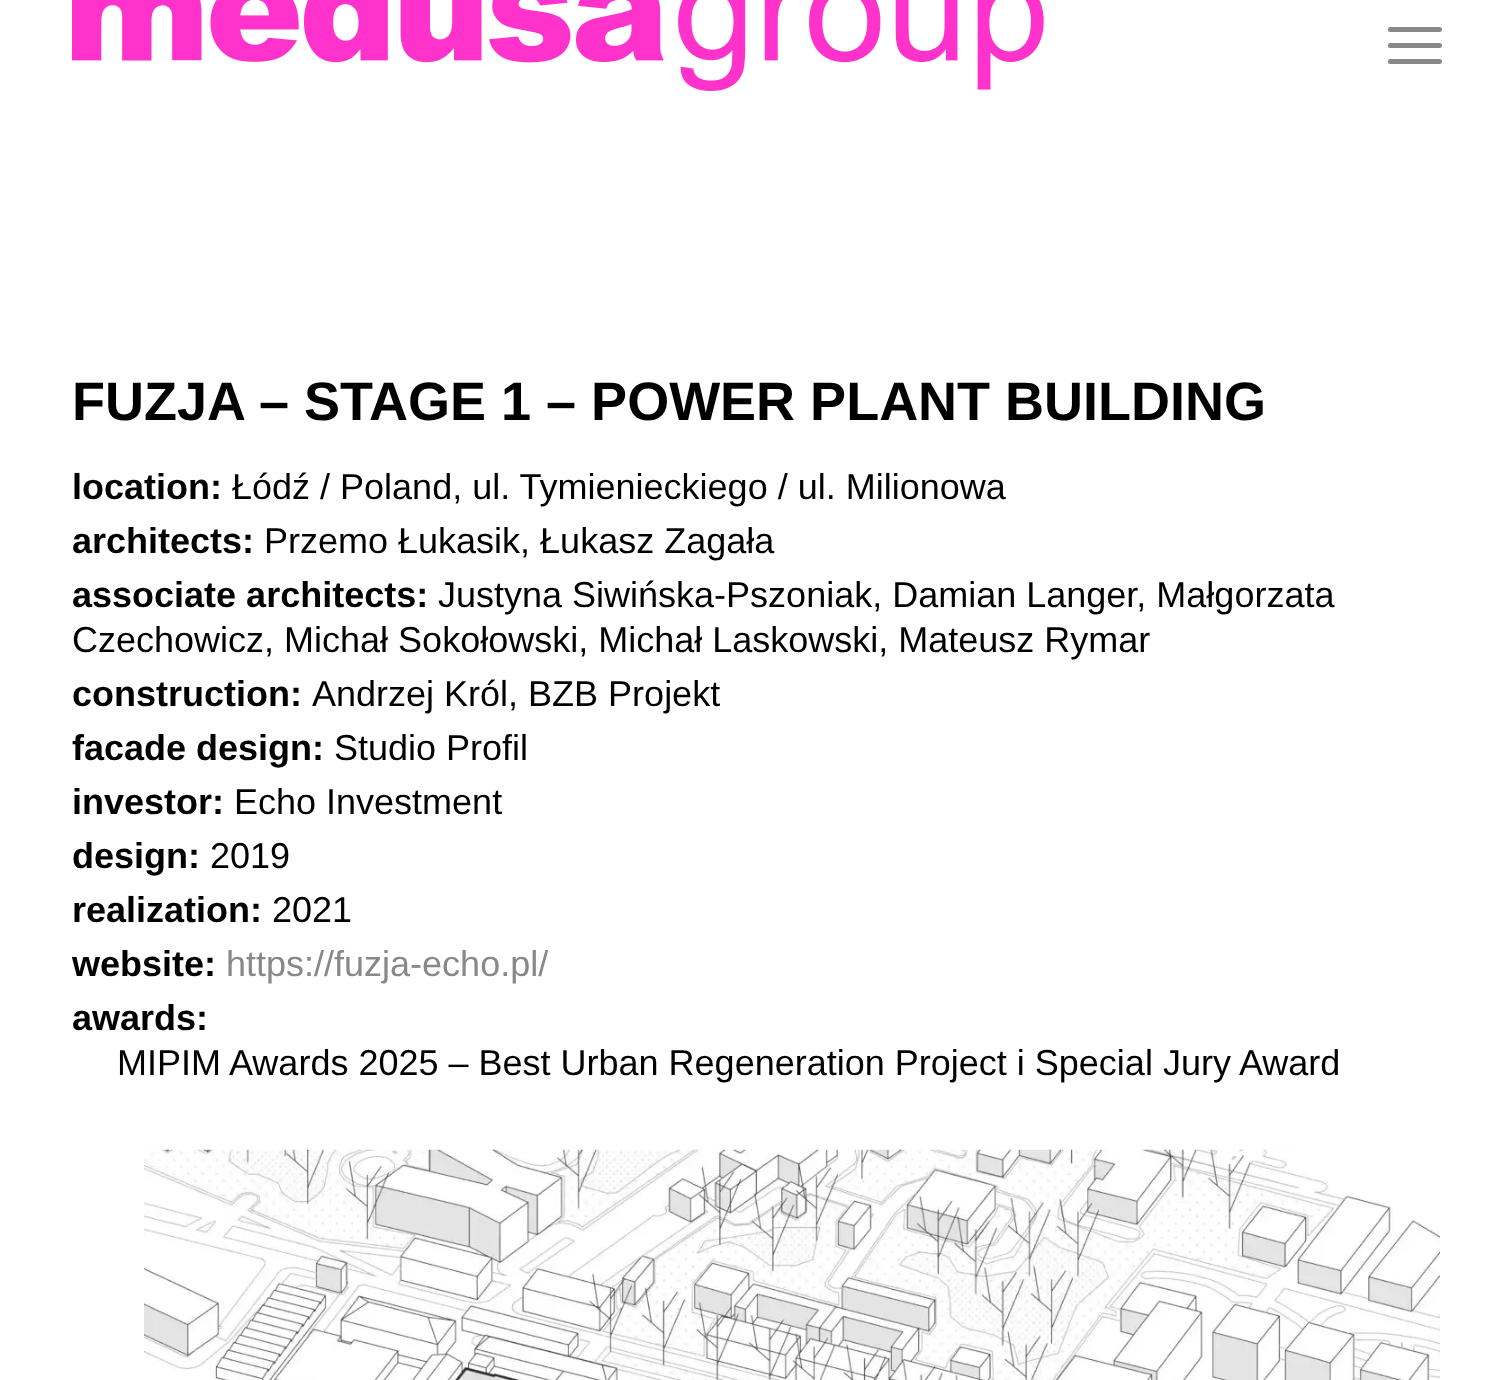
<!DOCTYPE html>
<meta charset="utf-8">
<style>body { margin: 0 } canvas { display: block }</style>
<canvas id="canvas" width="1510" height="1380"></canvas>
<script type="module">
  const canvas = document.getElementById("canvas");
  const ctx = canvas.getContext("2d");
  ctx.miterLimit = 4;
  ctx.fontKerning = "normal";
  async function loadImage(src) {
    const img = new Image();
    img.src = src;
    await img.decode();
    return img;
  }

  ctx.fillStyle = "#ffffff";
  ctx.fillRect(0, 0, 1510, 1380);
  ctx.drawImage(await loadImage("img1.png"), 72, 0, 972, 91);
  ctx.fillStyle = "#888888";
  ctx.beginPath();
  ctx.roundRect(1388, 27, 54, 5, 2.5);
  ctx.fill();
  ctx.beginPath();
  ctx.roundRect(1388, 43, 54, 5, 2.5);
  ctx.fill();
  ctx.beginPath();
  ctx.roundRect(1388, 59, 54, 5, 2.5);
  ctx.fill();
  ctx.font = "bold 54px Liberation Sans";
  ctx.fillStyle = "#000000";
  ctx.fillText("FUZJA – STAGE 1 – POWER PLANT BUILDING", 72, 420);
  ctx.font = "bold 36px Liberation Sans";
  ctx.fillText("location:", 72, 499);
  ctx.font = "36px Liberation Sans";
  ctx.fillText("Łódź / Poland, ul. Tymienieckiego / ul. Milionowa", 232, 499);
  ctx.font = "bold 36px Liberation Sans";
  ctx.fillText("architects:", 72, 553);
  ctx.font = "36px Liberation Sans";
  ctx.fillText("Przemo Łukasik, Łukasz Zagała", 264, 553);
  ctx.font = "bold 36px Liberation Sans";
  ctx.fillText("associate architects:", 72, 607);
  ctx.font = "36px Liberation Sans";
  ctx.fillText("Justyna Siwińska-Pszoniak, Damian Langer, Małgorzata", 438, 607);
  ctx.fillText("Czechowicz, Michał Sokołowski, Michał Laskowski, Mateusz Rymar", 72, 652);
  ctx.font = "bold 36px Liberation Sans";
  ctx.fillText("construction:", 72, 706);
  ctx.font = "36px Liberation Sans";
  ctx.fillText("Andrzej Król, BZB Projekt", 312, 706);
  ctx.font = "bold 36px Liberation Sans";
  ctx.fillText("facade design:", 72, 760);
  ctx.font = "36px Liberation Sans";
  ctx.fillText("Studio Profil", 334, 760);
  ctx.font = "bold 36px Liberation Sans";
  ctx.fillText("investor:", 72, 814);
  ctx.font = "36px Liberation Sans";
  ctx.fillText("Echo Investment", 234, 814);
  ctx.font = "bold 36px Liberation Sans";
  ctx.fillText("design:", 72, 868);
  ctx.font = "36px Liberation Sans";
  ctx.fillText("2019", 210, 868);
  ctx.font = "bold 36px Liberation Sans";
  ctx.fillText("realization:", 72, 922);
  ctx.font = "36px Liberation Sans";
  ctx.fillText("2021", 272, 922);
  ctx.font = "bold 36px Liberation Sans";
  ctx.fillText("website:", 72, 976);
  ctx.font = "36px Liberation Sans";
  ctx.fillStyle = "#888888";
  ctx.fillText("https://fuzja-echo.pl/", 226, 976);
  ctx.font = "bold 36px Liberation Sans";
  ctx.fillStyle = "#000000";
  ctx.fillText("awards:", 72, 1030);
  ctx.font = "36px Liberation Sans";
  ctx.fillText("MIPIM Awards 2025 – Best Urban Regeneration Project i Special Jury Award", 117, 1075);
  ctx.drawImage(await loadImage("img2.png"), 144, 1149, 1296, 231);
</script>
